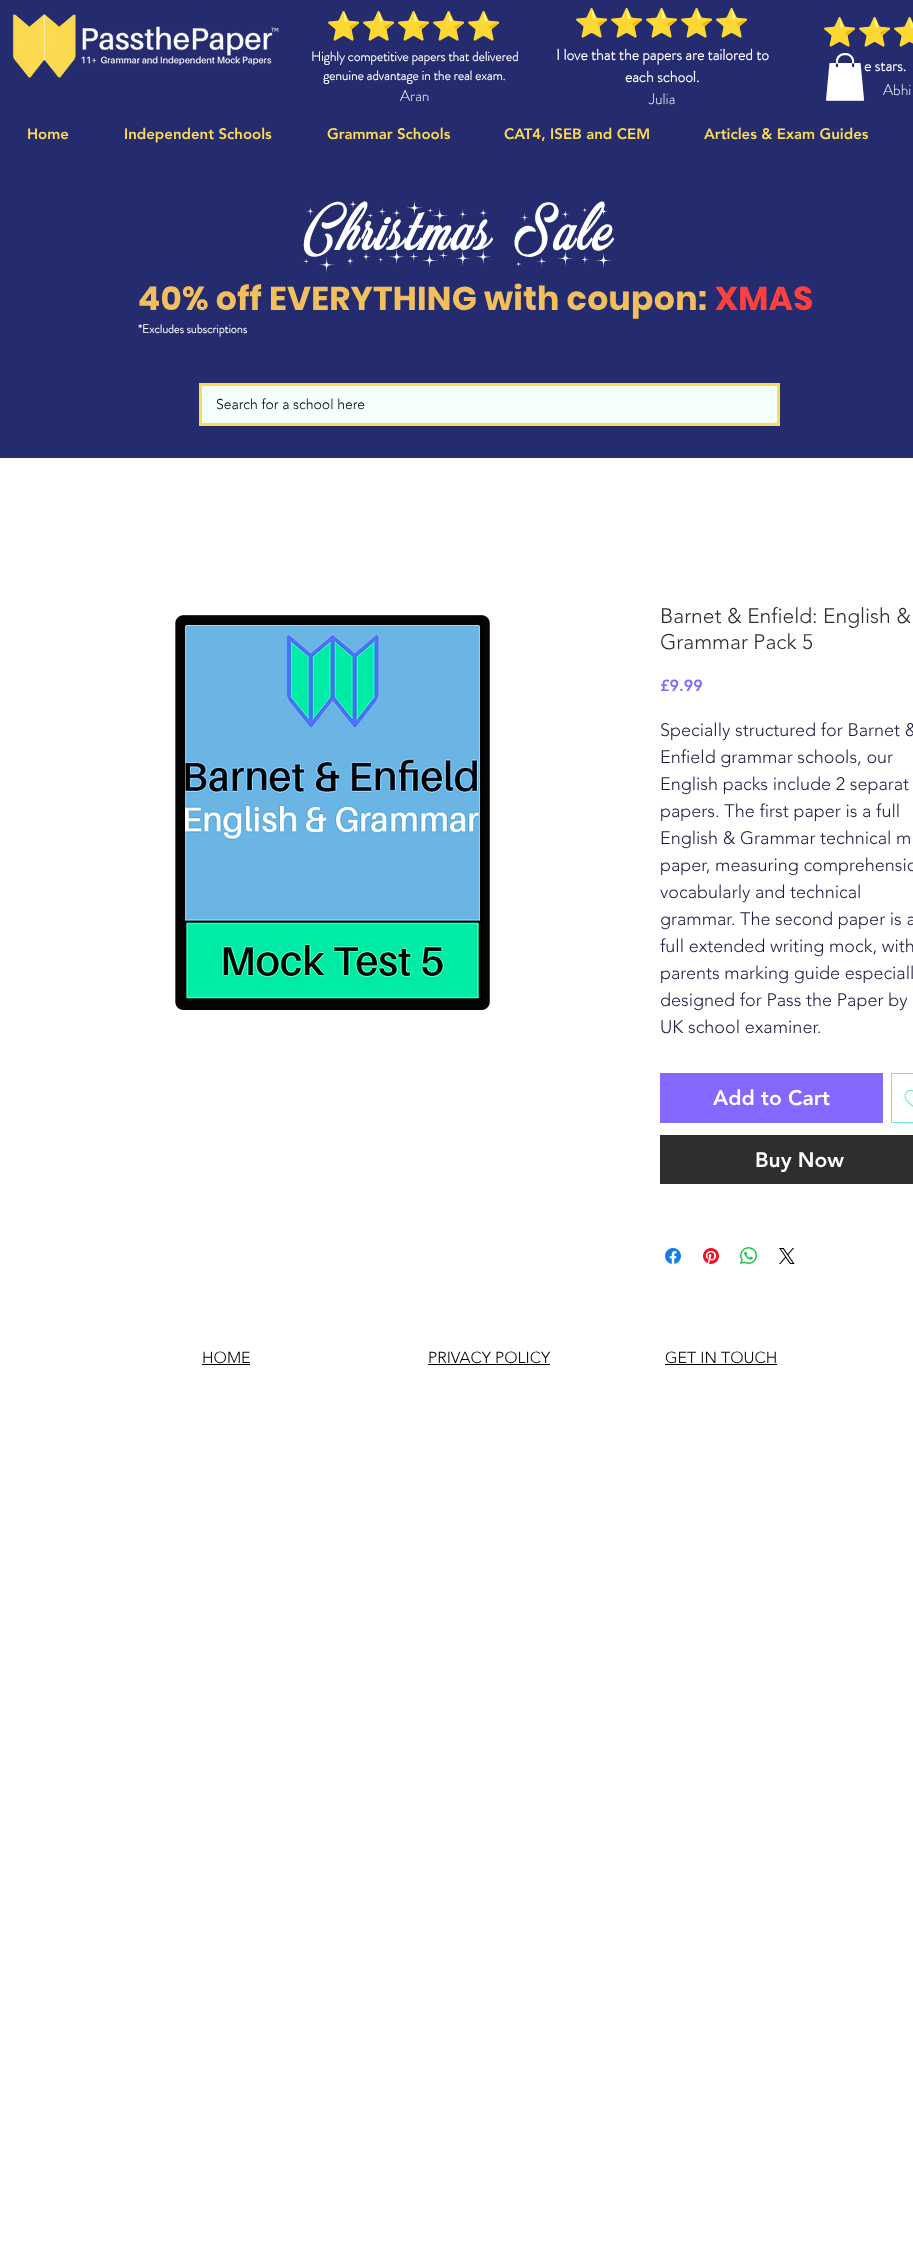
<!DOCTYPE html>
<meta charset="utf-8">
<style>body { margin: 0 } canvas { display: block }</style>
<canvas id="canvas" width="913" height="2251"></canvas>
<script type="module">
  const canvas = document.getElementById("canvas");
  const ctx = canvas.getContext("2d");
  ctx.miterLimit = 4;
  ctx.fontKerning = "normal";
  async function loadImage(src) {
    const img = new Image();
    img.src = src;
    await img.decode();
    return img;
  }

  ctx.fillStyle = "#ffffff";
  ctx.fillRect(0, 0, 913, 2251);
  ctx.fillStyle = "#242b6f";
  ctx.fillRect(0, 0, 913, 458);
  ctx.drawImage(await loadImage("img1.png"), 12, 14, 267, 64);
  ctx.font = "bold 28.25px Noto Color Emoji";
  ctx.fillStyle = "#2e2e2e";
  ctx.fillText("⭐️⭐️⭐️⭐️⭐️", 326, 36);
  ctx.font = "bold 13.25px 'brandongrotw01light'";
  ctx.fillStyle = "#ffffff";
  ctx.fillText("Highly competitive papers that delivered", 311, 61);
  ctx.fillText("genuine advantage in the real exam.", 323, 80);
  ctx.font = "300 15.5px 'brandongrotw01light'";
  ctx.fillText("Aran", 400, 101);
  ctx.font = "28.25px Noto Color Emoji";
  ctx.fillStyle = "#2e2e2e";
  ctx.fillText("⭐️⭐️⭐️⭐️⭐️", 574, 33);
  ctx.font = "bold 15.5px 'brandongrotw01light'";
  ctx.fillStyle = "#ffffff";
  ctx.fillText("I love that the papers are tailored to", 556, 60);
  ctx.fillText("each school.", 625, 82);
  ctx.font = "300 15.5px 'brandongrotw01light'";
  ctx.fillText("Julia", 649, 104);
  ctx.font = "bold 28.25px Noto Color Emoji";
  ctx.fillStyle = "#2e2e2e";
  ctx.fillText("⭐️⭐️⭐️", 822, 42);
  ctx.font = "bold 15.5px 'brandongrotw01light'";
  ctx.fillStyle = "#ffffff";
  ctx.fillText("e stars.", 864, 71);
  ctx.font = "300 15.5px 'brandongrotw01light'";
  ctx.fillText("Abhi", 883, 95);
  ctx.font = "900 15px 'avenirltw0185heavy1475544'";
  ctx.fillStyle = "#fddb51";
  ctx.fillText("Home", 27, 139);
  ctx.fillText("Independent Schools", 124, 139);
  ctx.fillText("Grammar Schools", 327, 139);
  ctx.fillText("CAT4, ISEB and CEM", 504, 139);
  ctx.fillText("Articles & Exam Guides", 704, 139);
  ctx.letterSpacing = "2.1px";
  ctx.font = "70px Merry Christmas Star";
  ctx.fillStyle = "#ffffff";
  ctx.fillText("Christmas Sale", 303, 250);
  ctx.letterSpacing = "0.3px";
  ctx.font = "bold 33px Poppins";
  ctx.fillStyle = "#f2bf5e";
  ctx.fillText("40% off EVERYTHING with coupon:", 138, 310);
  ctx.fillStyle = "#ff4040";
  ctx.fillText("XMAS", 715, 310);
  ctx.letterSpacing = "0px";
  ctx.font = "bold 12px 'brandongrotw01light'";
  ctx.fillStyle = "#ffffff";
  ctx.fillText("*Excludes subscriptions", 138, 333);
  ctx.fillStyle = "#f5fffe";
  ctx.beginPath();
  ctx.rect(200.5, 384.5, 578, 40);
  ctx.fill();
  ctx.strokeStyle = "#fddb51";
  ctx.lineWidth = 3;
  ctx.stroke();
  ctx.font = "300 14px 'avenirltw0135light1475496'";
  ctx.fillStyle = "#000000";
  ctx.fillText("Search for a school here", 216, 409);
  ctx.drawImage(await loadImage("img2.png"), 826, 53, 39, 48);
  ctx.drawImage(await loadImage("img3.png"), 173, 615, 317, 396);
  ctx.font = "300 21px 'avenirltw0135light1475496'";
  ctx.fillStyle = "#2e2e2e";
  ctx.fillText("Barnet & Enfield: English &", 660, 623);
  ctx.fillText("Grammar Pack 5", 660, 649);
  ctx.font = "900 16px 'avenirltw0185heavy1475544'";
  ctx.fillStyle = "#8468ff";
  ctx.fillText("£9.99", 660, 691);
  ctx.font = "300 18px 'avenirltw0135light1475496'";
  ctx.fillStyle = "#211a40";
  ctx.fillText("Specially structured for Barnet &", 660, 736);
  ctx.fillText("Enfield grammar schools, our", 660, 763);
  ctx.fillText("English packs include 2 separat", 660, 790);
  ctx.fillText("papers. The first paper is a full", 660, 817);
  ctx.fillText("English & Grammar technical m", 660, 844);
  ctx.fillText("paper, measuring comprehensio", 660, 871);
  ctx.fillText("vocabularly and technical", 660, 898);
  ctx.fillText("grammar. The second paper is a", 660, 925);
  ctx.fillText("full extended writing mock, with", 660, 952);
  ctx.fillText("parents marking guide especiall", 660, 979);
  ctx.fillText("designed for Pass the Paper by", 660, 1006);
  ctx.fillText("UK school examiner.", 660, 1033);
  ctx.fillStyle = "#8468ff";
  ctx.fillRect(660, 1073, 223, 50);
  ctx.font = "900 21px 'avenirltw0185heavy1475544'";
  ctx.fillStyle = "#ffffff";
  ctx.fillText("Add to Cart", 713, 1105);
  ctx.strokeStyle = "#6aebd0";
  ctx.lineWidth = 1;
  ctx.strokeRect(891.5, 1073.5, 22, 49);
  ctx.drawImage(await loadImage("img4.png"), 904, 1089, 9, 18);
  ctx.fillStyle = "#2e2e2e";
  ctx.fillRect(660, 1135, 253, 49);
  ctx.fillStyle = "#ffffff";
  ctx.fillText("Buy Now", 755, 1167);
  ctx.drawImage(await loadImage("img5.png"), 665, 1248, 16, 16);
  ctx.drawImage(await loadImage("img6.png"), 703, 1248, 16, 16);
  ctx.drawImage(await loadImage("img7.png"), 740, 1247, 17, 17);
  ctx.drawImage(await loadImage("img8.png"), 779, 1248, 16, 16);
  ctx.font = "300 16px 'avenirltw0135light1475496'";
  ctx.fillStyle = "#000000";
  ctx.fillText("HOME", 202, 1363);
  ctx.fillRect(202, 1364, 48, 1);
  ctx.fillText("PRIVACY POLICY", 428, 1363);
  ctx.fillRect(428, 1364, 122, 1);
  ctx.fillText("GET IN TOUCH", 665, 1363);
  ctx.fillRect(665, 1364, 112, 1);
</script>
